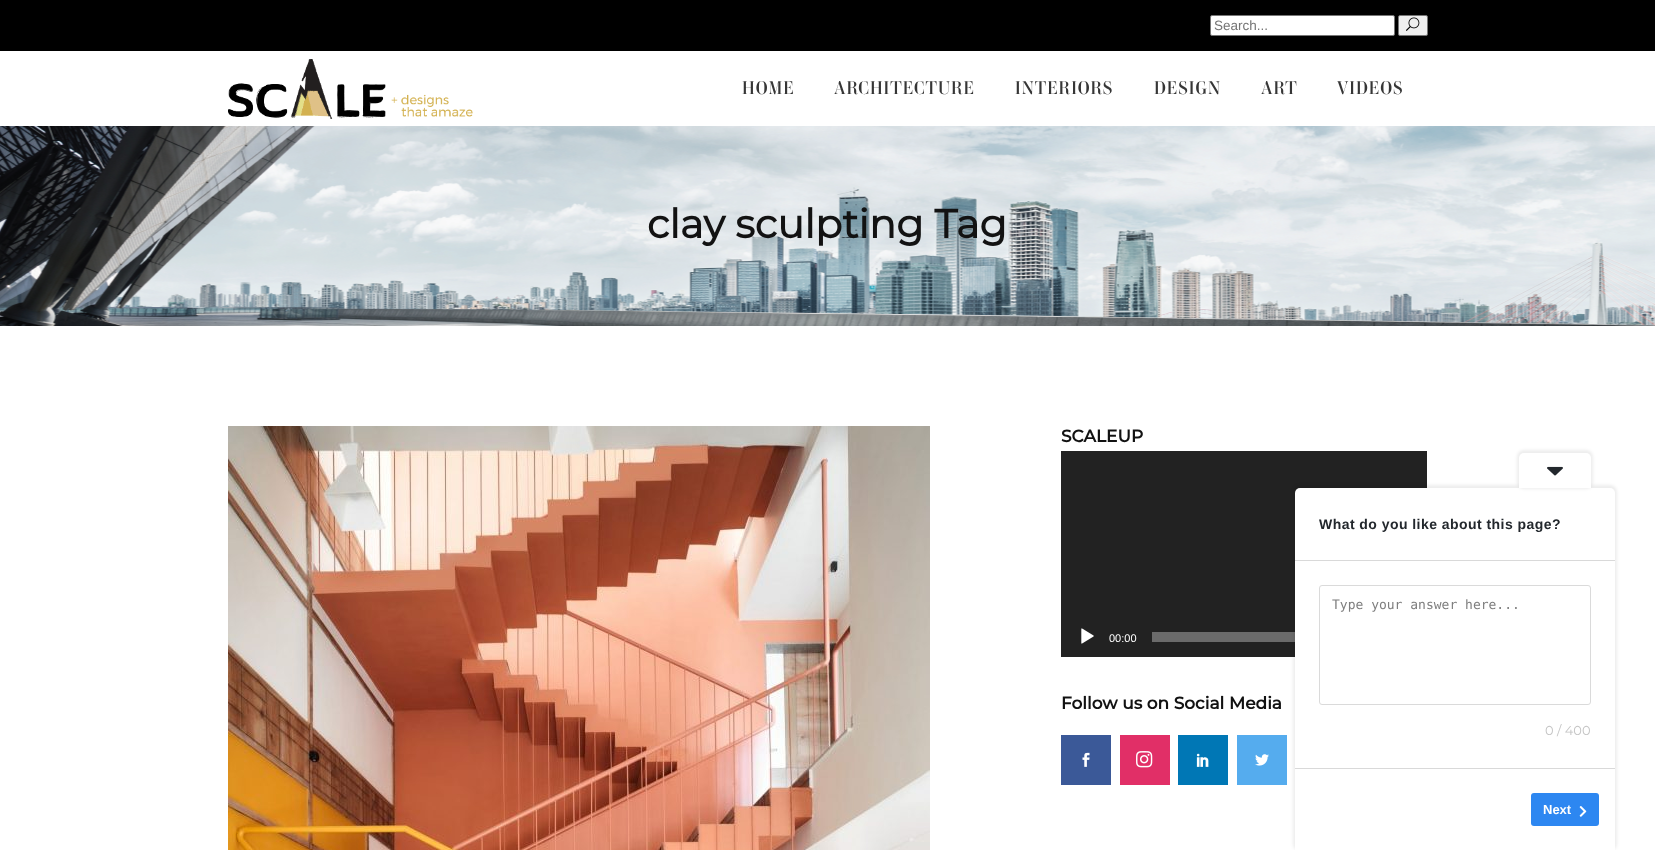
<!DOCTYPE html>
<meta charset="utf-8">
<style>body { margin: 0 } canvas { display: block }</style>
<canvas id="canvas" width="1655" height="850"></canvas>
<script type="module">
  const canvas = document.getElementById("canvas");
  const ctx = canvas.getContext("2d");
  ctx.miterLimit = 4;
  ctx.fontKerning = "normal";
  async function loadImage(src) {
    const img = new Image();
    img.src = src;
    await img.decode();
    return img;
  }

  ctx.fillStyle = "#ffffff";
  ctx.fillRect(0, 0, 1655, 850);
  ctx.fillStyle = "#000000";
  ctx.fillRect(0, 0, 1655, 51);
  ctx.fillStyle = "#ffffff";
  ctx.beginPath();
  ctx.roundRect(1210.5, 15.5, 184, 20, 1.5);
  ctx.fill();
  ctx.strokeStyle = "#767676";
  ctx.stroke();
  ctx.font = "13.5px Liberation Sans";
  ctx.fillStyle = "#757575";
  ctx.fillText("Search...", 1214, 30);
  ctx.fillStyle = "#efefef";
  ctx.beginPath();
  ctx.roundRect(1398.5, 15.5, 29, 20, 1.5);
  ctx.fill();
  ctx.stroke();
  ctx.drawImage(await loadImage("img1.png"), 1406, 17, 14, 14);
  ctx.drawImage(await loadImage("img2.png"), 228, 59, 245, 60);
  ctx.letterSpacing = "1px";
  ctx.font = "18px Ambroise";
  ctx.fillStyle = "#363636";
  ctx.fillText("HOME", 742, 94);
  ctx.fillText("ARCHITECTURE", 834, 94);
  ctx.fillText("INTERIORS", 1015, 94);
  ctx.fillText("DESIGN", 1154, 94);
  ctx.fillText("ART", 1261, 94);
  ctx.fillText("VIDEOS", 1337, 94);
  ctx.drawImage(await loadImage("img3.png"), 0, 126, 1655, 200);
  ctx.letterSpacing = "0px";
  ctx.font = "bold 40px 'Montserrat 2'";
  ctx.fillStyle = "#121212";
  ctx.fillText("clay sculpting Tag", 647, 238);
  ctx.drawImage(await loadImage("img4.png"), 228, 426, 702, 424);
  ctx.font = "bold 17px Montserrat";
  ctx.fillText("SCALEUP", 1061, 442);
  ctx.fillStyle = "#222222";
  ctx.fillRect(1061, 451, 366, 206);
  ctx.drawImage(await loadImage("img5.png"), 1081, 628, 13, 16);
  ctx.font = "11px Liberation Sans";
  ctx.fillStyle = "#ffffff";
  ctx.fillText("00:00", 1109, 642);
  ctx.fillStyle = "#6b6b6b";
  ctx.fillRect(1152, 632, 143, 10);
  ctx.font = "bold 17px Montserrat";
  ctx.fillStyle = "#121212";
  ctx.fillText("Follow us on Social Media", 1061, 709);
  ctx.fillStyle = "#3b5998";
  ctx.fillRect(1061, 735, 50, 50);
  ctx.drawImage(await loadImage("img6.png"), 1082, 752, 8, 15);
  ctx.fillStyle = "#e12f67";
  ctx.fillRect(1120, 735, 50, 50);
  ctx.drawImage(await loadImage("img7.png"), 1136, 751, 17, 17);
  ctx.fillStyle = "#0077b5";
  ctx.fillRect(1178, 735, 50, 50);
  ctx.drawImage(await loadImage("img8.png"), 1196, 753, 13, 14);
  ctx.fillStyle = "#55acee";
  ctx.fillRect(1237, 735, 50, 50);
  ctx.drawImage(await loadImage("img9.png"), 1255, 754, 14, 12);
  ctx.fillStyle = "rgba(0, 0, 0, 0.07)";
  ctx.filter = "blur(1.5px)";
  ctx.beginPath();
  ctx.roundRect(1293, 485, 324, 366, 7);
  ctx.fill();
  ctx.filter = "none";
  ctx.fillStyle = "#ffffff";
  ctx.beginPath();
  ctx.roundRect(1295, 488, 320, 362, [5, 5, 0, 0]);
  ctx.fill();
  ctx.fillStyle = "rgba(0, 0, 0, 0.07)";
  ctx.filter = "blur(1.5px)";
  ctx.beginPath();
  ctx.roundRect(1517, 450, 76, 39, 7);
  ctx.fill();
  ctx.filter = "none";
  ctx.fillStyle = "#ffffff";
  ctx.beginPath();
  ctx.roundRect(1519, 453, 72, 35, [5, 5, 0, 0]);
  ctx.fill();
  ctx.drawImage(await loadImage("img10.png"), 1547, 466, 16, 10);
  ctx.letterSpacing = "0.45px";
  ctx.font = "bold 14px Liberation Sans";
  ctx.fillStyle = "#23282d";
  ctx.fillText("What do you like about this page?", 1319, 529);
  ctx.fillStyle = "#d9d9d9";
  ctx.fillRect(1295, 560, 320, 1);
  ctx.fillRect(1295, 768, 320, 1);
  ctx.beginPath();
  ctx.roundRect(1319.5, 585.5, 271, 119, 2.5);
  ctx.strokeStyle = "#dadada";
  ctx.stroke();
  ctx.letterSpacing = "0px";
  ctx.font = "13px DejaVu Sans Mono";
  ctx.fillStyle = "#7e7e7e";
  ctx.fillText("Type your answer here...", 1332, 609);
  ctx.font = "13px Montserrat";
  ctx.fillStyle = "#c4c4c4";
  ctx.fillText("0 / 400", 1545, 735);
  ctx.fillStyle = "#2d87f1";
  ctx.beginPath();
  ctx.roundRect(1531, 793, 68, 33, 3);
  ctx.fill();
  ctx.font = "bold 13px Liberation Sans";
  ctx.fillStyle = "#ffffff";
  ctx.fillText("Next", 1543, 814);
  ctx.drawImage(await loadImage("img11.png"), 1579, 806, 8, 11);
</script>
